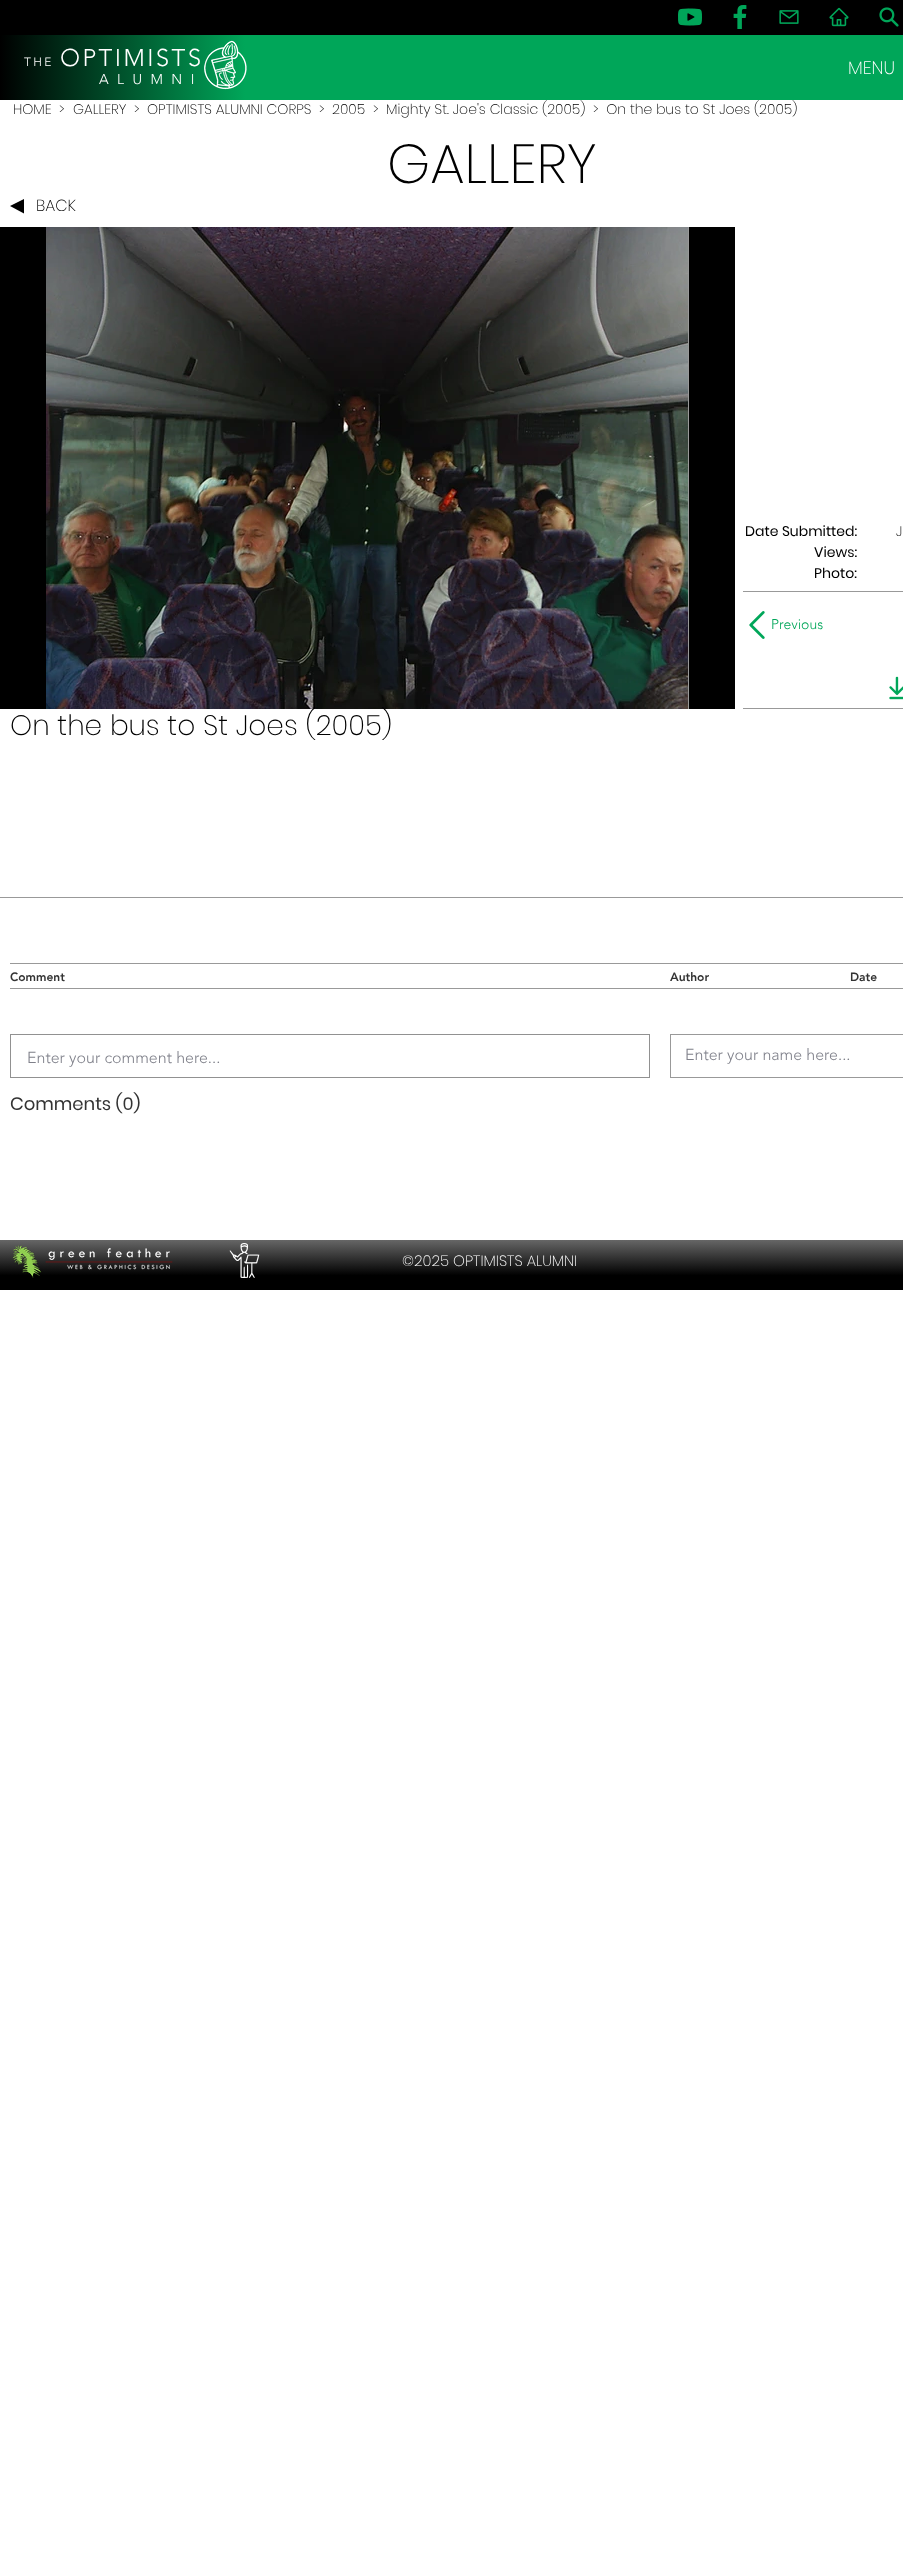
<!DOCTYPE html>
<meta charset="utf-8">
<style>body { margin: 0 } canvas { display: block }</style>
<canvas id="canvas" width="903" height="2566"></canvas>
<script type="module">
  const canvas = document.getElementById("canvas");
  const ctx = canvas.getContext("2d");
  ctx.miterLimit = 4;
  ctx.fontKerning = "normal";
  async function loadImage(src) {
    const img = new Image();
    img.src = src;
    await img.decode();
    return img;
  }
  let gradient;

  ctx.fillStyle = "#ffffff";
  ctx.fillRect(0, 0, 903, 2566);
  ctx.fillStyle = "#000000";
  ctx.fillRect(0, 0, 903, 35);
  ctx.drawImage(await loadImage("img1.png"), 678, 8, 24, 18);
  ctx.drawImage(await loadImage("img2.png"), 733, 5, 14, 24);
  ctx.drawImage(await loadImage("img3.png"), 779, 10, 20, 14);
  ctx.drawImage(await loadImage("img4.png"), 829, 7, 20, 20);
  ctx.drawImage(await loadImage("img5.png"), 879, 7, 20, 20);
  ctx.fillStyle = "#00a659";
  ctx.fillRect(245, 35, 658, 65);
  gradient = ctx.createLinearGradient(0, 68, 245, 67);
  gradient.addColorStop(0, "#000000");
  gradient.addColorStop(1, "#00a659");
  ctx.fillStyle = gradient;
  ctx.fillRect(0, 35, 245, 65);
  ctx.letterSpacing = "2.4px";
  ctx.font = "300 12px 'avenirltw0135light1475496'";
  ctx.fillStyle = "#ffffff";
  ctx.fillText("THE", 24, 66);
  ctx.font = "300 24px 'avenirltw0135light1475496'";
  ctx.fillText("OPTIMISTS", 60, 66);
  ctx.font = "300 14px 'avenirltw0135light1475496'";
  ctx.fillText("A L U M N I", 99, 84);
  ctx.drawImage(await loadImage("img6.png"), 204, 40, 43, 50);
  ctx.letterSpacing = "0px";
  ctx.font = "200 18px Poppins";
  ctx.fillText("MENU", 848, 74);
  ctx.font = "200 14px Poppins";
  ctx.fillStyle = "#000000";
  ctx.fillText("HOME", 13, 114);
  ctx.fillText(">", 59, 114);
  ctx.fillText("GALLERY", 73, 114);
  ctx.fillText(">", 134, 114);
  ctx.fillText("OPTIMISTS ALUMNI CORPS", 147, 114);
  ctx.fillText(">", 319, 114);
  ctx.fillText("2005", 332, 114);
  ctx.fillText(">", 373, 114);
  ctx.fillText("Mighty St. Joe's Classic (2005)", 386, 114);
  ctx.fillText(">  On the bus to St Joes (2005)", 593, 114);
  ctx.font = "200 55px Poppins";
  ctx.fillText("GALLERY", 387, 183);
  ctx.beginPath();
  ctx.moveTo(24, 213.5);
  ctx.lineTo(10, 206);
  ctx.lineTo(24, 199);
  ctx.closePath();
  ctx.fill();
  ctx.font = "200 16px Poppins";
  ctx.fillText("BACK", 36, 211);
  gradient = ctx.createLinearGradient(0, 468, 735, 468);
  gradient.addColorStop(0.15, "#000000");
  gradient.addColorStop(0.41, "#ffffff");
  gradient.addColorStop(0.6, "#ffffff");
  gradient.addColorStop(0.85, "#000000");
  ctx.fillStyle = gradient;
  ctx.fillRect(0, 227, 735, 482);
  ctx.fillStyle = "#999999";
  ctx.fillRect(688, 227, 1, 482);
  ctx.drawImage(await loadImage("img7.png"), 46, 227, 642, 482);
  ctx.font = "14px Poppins";
  ctx.fillStyle = "#000000";
  ctx.fillText("Date Submitted:", 745, 536);
  ctx.font = "200 14px Poppins";
  ctx.fillText("J", 896, 536);
  ctx.font = "14px Poppins";
  ctx.fillText("Views:", 814, 557);
  ctx.fillText("Photo:", 814, 578);
  ctx.fillStyle = "#999999";
  ctx.fillRect(743, 591, 160, 1);
  ctx.drawImage(await loadImage("img8.png"), 749, 611, 16, 28);
  ctx.font = "300 14px 'avenirltw0135light1475496'";
  ctx.fillStyle = "#00a659";
  ctx.fillText("Previous", 771, 629);
  ctx.drawImage(await loadImage("img9.png"), 889, 676, 14, 24);
  ctx.fillStyle = "#999999";
  ctx.fillRect(743, 708, 160, 1);
  ctx.font = "200 28px Poppins";
  ctx.fillStyle = "#000000";
  ctx.fillText("On the bus to St Joes (2005)", 10, 735);
  ctx.fillStyle = "#999999";
  ctx.fillRect(0, 897, 903, 1);
  ctx.fillRect(10, 963, 893, 1);
  ctx.font = "900 12px 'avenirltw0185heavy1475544'";
  ctx.fillStyle = "#333333";
  ctx.fillText("Comment", 10, 981);
  ctx.fillText("Author", 670, 981);
  ctx.fillText("Date", 850, 981);
  ctx.fillStyle = "#999999";
  ctx.fillRect(10, 988, 893, 1);
  ctx.strokeStyle = "#919191";
  ctx.strokeRect(10.5, 1034.5, 639, 43);
  ctx.font = "300 16px 'avenirltw0135light1475496'";
  ctx.fillStyle = "#7f808a";
  ctx.fillText("Enter your comment here...", 27, 1063);
  ctx.strokeStyle = "#999999";
  ctx.strokeRect(670.5, 1034.5, 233, 43);
  ctx.fillText("Enter your name here...", 685, 1060);
  ctx.font = "18px Poppins";
  ctx.fillStyle = "#333333";
  ctx.fillText("Comments (0)", 10, 1110);
  gradient = ctx.createLinearGradient(490, 1290, 490, 1240);
  gradient.addColorStop(0.29, "#000000");
  gradient.addColorStop(1, "#666666");
  ctx.fillStyle = gradient;
  ctx.fillRect(0, 1240, 903, 50);
  ctx.drawImage(await loadImage("img10.png"), 12, 1245, 161, 33);
  ctx.drawImage(await loadImage("img11.png"), 229, 1243, 31, 35);
  ctx.font = "200 15px Poppins";
  ctx.fillStyle = "#ffffff";
  ctx.fillText("©2025 OPTIMISTS ALUMNI", 402, 1266);
</script>
